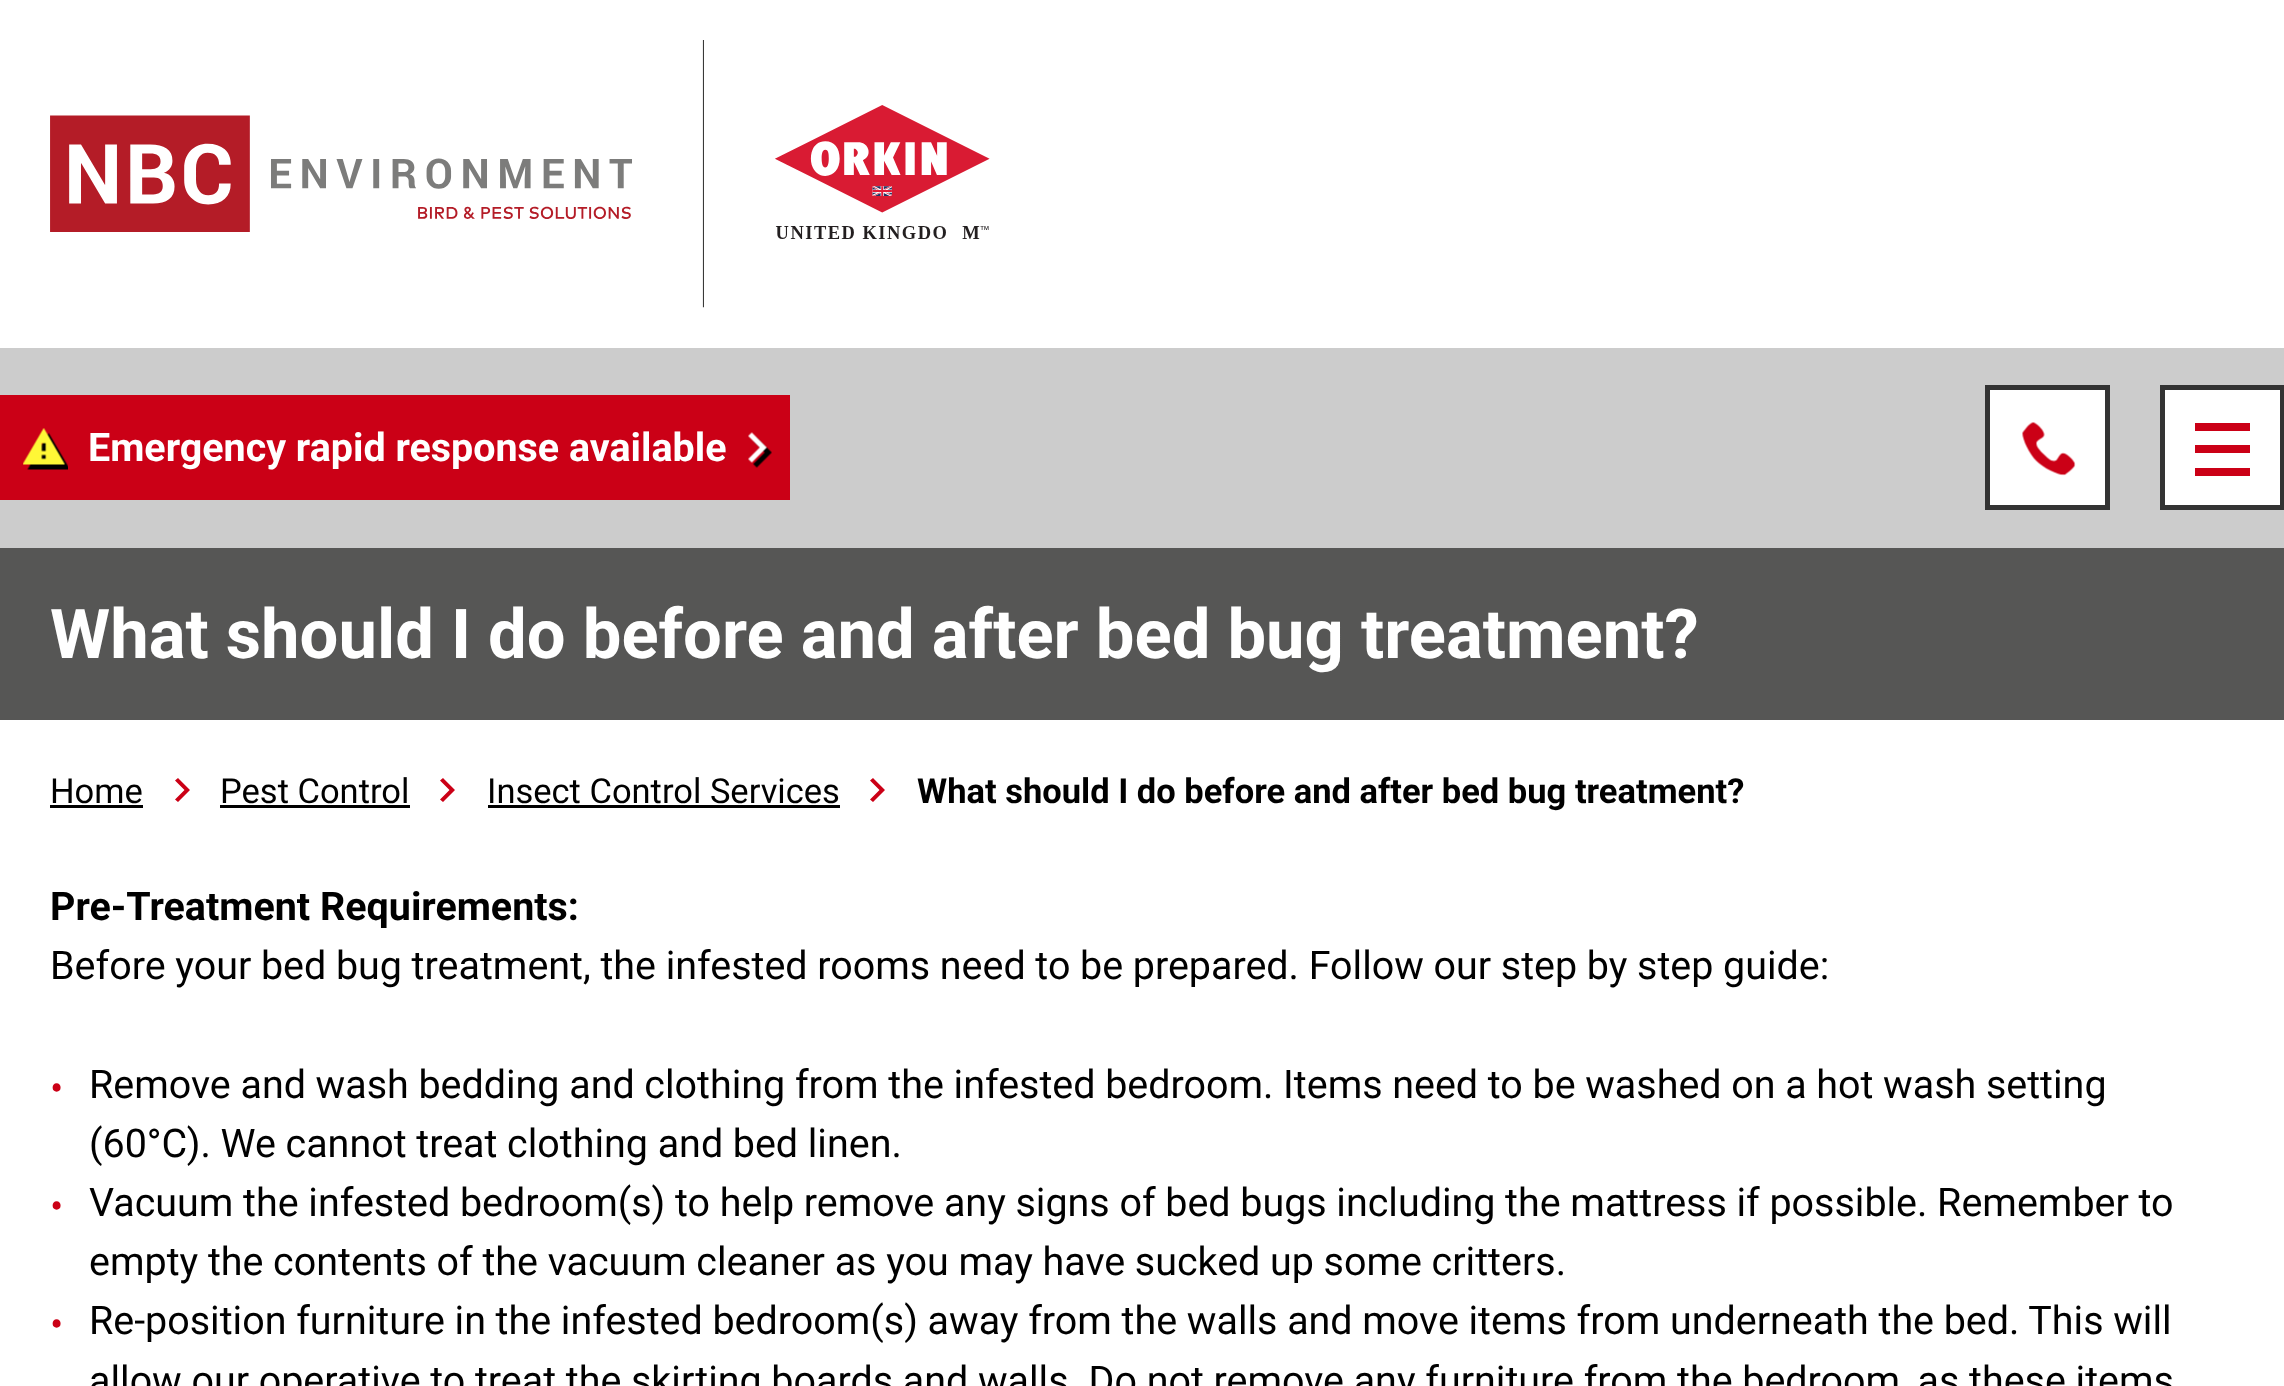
<!DOCTYPE html>
<meta charset="utf-8">
<style>body { margin: 0 } canvas { display: block }</style>
<canvas id="canvas" width="2284" height="1386"></canvas>
<script type="module">
  const canvas = document.getElementById("canvas");
  const ctx = canvas.getContext("2d");
  ctx.miterLimit = 4;
  ctx.fontKerning = "normal";
  async function loadImage(src) {
    const img = new Image();
    img.src = src;
    await img.decode();
    return img;
  }

  ctx.fillStyle = "#ffffff";
  ctx.fillRect(0, 0, 2284, 1386);
  ctx.drawImage(await loadImage("img1.png"), 50, 40, 940, 268);
  ctx.fillStyle = "#cccccc";
  ctx.fillRect(0, 348, 2284, 200);
  ctx.fillStyle = "#cb0016";
  ctx.fillRect(0, 395, 790, 105);
  ctx.drawImage(await loadImage("img2.png"), 23, 428, 45, 42);
  ctx.font = "bold 39.45px Roboto";
  ctx.fillStyle = "#ffffff";
  ctx.fillText("Emergency rapid response available", 88, 461);
  ctx.drawImage(await loadImage("img3.png"), 748, 432, 24, 36);
  ctx.beginPath();
  ctx.rect(1987.5, 387.5, 120, 120);
  ctx.fill();
  ctx.strokeStyle = "#333333";
  ctx.lineWidth = 5;
  ctx.stroke();
  ctx.drawImage(await loadImage("img4.png"), 2022, 422, 54, 54);
  ctx.beginPath();
  ctx.rect(2162.5, 387.5, 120, 120);
  ctx.fill();
  ctx.stroke();
  ctx.fillStyle = "#cb0016";
  ctx.fillRect(2195, 445, 55, 8);
  ctx.fillRect(2195, 423, 55, 8);
  ctx.fillRect(2195, 468, 55, 8);
  ctx.fillStyle = "#565655";
  ctx.fillRect(0, 548, 2284, 172);
  ctx.font = "bold 68.75px Roboto";
  ctx.fillStyle = "#ffffff";
  ctx.fillText("What should I do before and after bed bug treatment?", 50, 658);
  ctx.font = "34.5px Roboto";
  ctx.fillStyle = "#000000";
  ctx.fillText("Home", 50, 803);
  ctx.fillRect(50, 805, 93, 3);
  ctx.fillStyle = "#cb0016";
  ctx.beginPath();
  ctx.moveTo(175, 799.5);
  ctx.lineTo(178, 802);
  ctx.lineTo(190, 790);
  ctx.lineTo(178, 778);
  ctx.lineTo(175, 780.5);
  ctx.lineTo(184.5, 790);
  ctx.closePath();
  ctx.fill();
  ctx.fillStyle = "#000000";
  ctx.fillText("Pest Control", 220, 803);
  ctx.fillRect(220, 805, 190, 3);
  ctx.fillStyle = "#cb0016";
  ctx.beginPath();
  ctx.moveTo(440, 799.5);
  ctx.lineTo(443, 802);
  ctx.lineTo(455, 790);
  ctx.lineTo(443, 778);
  ctx.lineTo(440, 780.5);
  ctx.lineTo(449.5, 790);
  ctx.closePath();
  ctx.fill();
  ctx.fillStyle = "#000000";
  ctx.fillText("Insect Control Services", 487, 803);
  ctx.fillRect(488, 805, 352, 3);
  ctx.fillStyle = "#cb0016";
  ctx.beginPath();
  ctx.moveTo(870, 799.5);
  ctx.lineTo(873, 802);
  ctx.lineTo(885, 790);
  ctx.lineTo(873, 778);
  ctx.lineTo(870, 780.5);
  ctx.lineTo(879.5, 790);
  ctx.closePath();
  ctx.fill();
  ctx.font = "bold 34.5px Roboto";
  ctx.fillStyle = "#000000";
  ctx.fillText("What should I do before and after bed bug treatment?", 917, 803);
  ctx.font = "bold 39.45px Roboto";
  ctx.fillText("Pre-Treatment Requirements:", 50, 920);
  ctx.wordSpacing = "-0.1px";
  ctx.font = "39.45px Roboto";
  ctx.fillText("Before your bed bug treatment, the infested rooms need to be prepared. Follow our step by step guide:", 50, 979);
  ctx.wordSpacing = "0px";
  ctx.fillStyle = "#cb0016";
  ctx.fillText("•", 50, 1102);
  ctx.wordSpacing = "-0.1px";
  ctx.fillStyle = "#000000";
  ctx.fillText("Remove and wash bedding and clothing from the infested bedroom. Items need to be washed on a hot wash setting", 89, 1098);
  ctx.fillText("(60°C). We cannot treat clothing and bed linen.", 89, 1157);
  ctx.wordSpacing = "0px";
  ctx.fillStyle = "#cb0016";
  ctx.fillText("•", 50, 1220);
  ctx.wordSpacing = "-0.1px";
  ctx.fillStyle = "#000000";
  ctx.fillText("Vacuum the infested bedroom(s) to help remove any signs of bed bugs including the mattress if possible. Remember to", 89, 1216);
  ctx.fillText("empty the contents of the vacuum cleaner as you may have sucked up some critters.", 89, 1275);
  ctx.wordSpacing = "0px";
  ctx.fillStyle = "#cb0016";
  ctx.fillText("•", 50, 1338);
  ctx.wordSpacing = "-0.1px";
  ctx.fillStyle = "#000000";
  ctx.fillText("Re-position furniture in the infested bedroom(s) away from the walls and move items from underneath the bed. This will", 89, 1334);
  ctx.fillText("allow our operative to treat the skirting boards and walls. Do not remove any furniture from the bedroom, as these items", 89, 1394);
</script>
